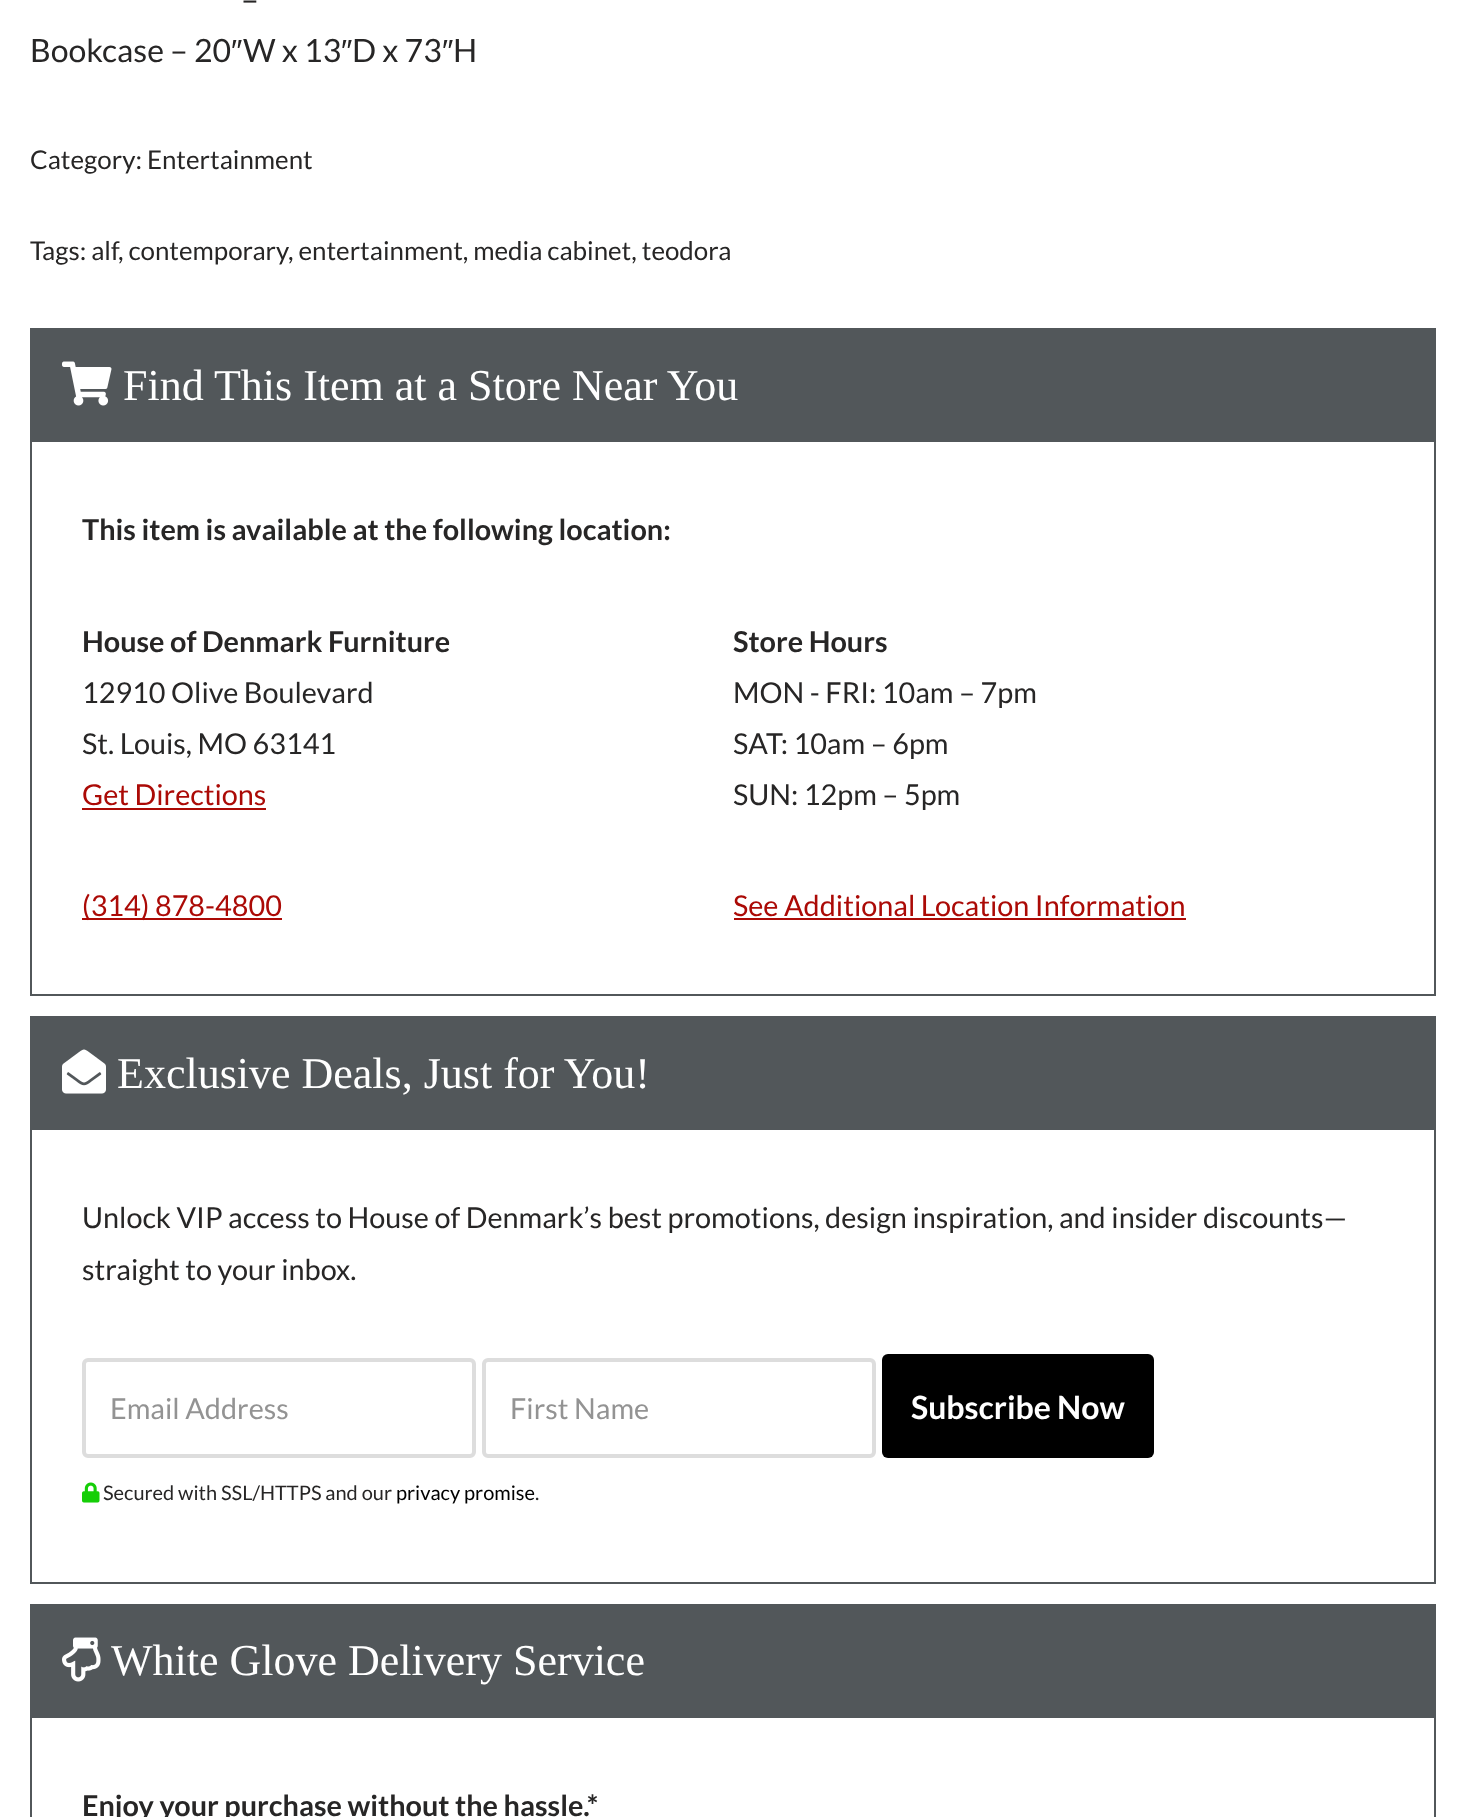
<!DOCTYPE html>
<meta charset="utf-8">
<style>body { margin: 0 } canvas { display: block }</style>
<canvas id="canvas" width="1466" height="1817"></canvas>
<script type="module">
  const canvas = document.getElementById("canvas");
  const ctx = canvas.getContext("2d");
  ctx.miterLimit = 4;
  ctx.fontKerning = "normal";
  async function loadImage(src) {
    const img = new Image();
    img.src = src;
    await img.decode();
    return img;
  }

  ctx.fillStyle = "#ffffff";
  ctx.fillRect(0, 0, 1466, 1817);
  ctx.font = "32px Lato";
  ctx.fillStyle = "#272626";
  ctx.fillText("–", 241, 11);
  ctx.fillText("Bookcase – 20", 30, 62);
  ctx.font = "32px Liberation Sans";
  ctx.fillText("″", 231, 62);
  ctx.font = "32px Lato";
  ctx.fillText("W x 13", 243, 62);
  ctx.font = "32px Liberation Sans";
  ctx.fillText("″", 341, 62);
  ctx.font = "32px Lato";
  ctx.fillText("D x 73", 352, 62);
  ctx.font = "32px Liberation Sans";
  ctx.fillText("″", 442, 62);
  ctx.font = "32px Lato";
  ctx.fillText("H", 453, 62);
  ctx.font = "25.9px Lato";
  ctx.fillText("Category: Entertainment", 30, 169);
  ctx.fillText("Tags: alf", 30, 260);
  ctx.fillText(", contemporary", 118, 260);
  ctx.fillText(", entertainment, media cabinet, teodora", 288, 260);
  ctx.strokeStyle = "#52575a";
  ctx.lineWidth = 2;
  ctx.strokeRect(31, 329, 1404, 666);
  ctx.fillStyle = "#52575a";
  ctx.fillRect(32, 330, 1402, 112);
  ctx.drawImage(await loadImage("img1.png"), 62, 361, 50, 45);
  ctx.font = "44px Liberation Serif";
  ctx.fillStyle = "#ffffff";
  ctx.fillText("Find This Item at a Store Near You", 123, 400);
  ctx.font = "bold 28.8px Lato";
  ctx.fillStyle = "#272626";
  ctx.fillText("This item is available at the following location:", 82, 540);
  ctx.fillText("House of Denmark Furniture", 82, 652);
  ctx.font = "28.8px Lato";
  ctx.fillText("12910 Olive Boulevard", 82, 703);
  ctx.fillText("St. Louis, MO 63141", 82, 754);
  ctx.fillStyle = "#ab0a06";
  ctx.fillText("Get Directions", 82, 805);
  ctx.fillRect(82, 808, 184, 2);
  ctx.fillRect(82, 918, 200, 2);
  ctx.fillText("(314) 878-4800", 82, 916);
  ctx.font = "bold 28.8px Lato";
  ctx.fillStyle = "#272626";
  ctx.fillText("Store Hours", 733, 652);
  ctx.font = "28.8px Lato";
  ctx.fillText("MON - FRI: 10am – 7pm", 733, 703);
  ctx.fillText("SAT: 10am – 6pm", 733, 754);
  ctx.fillText("SUN: 12pm – 5pm", 733, 805);
  ctx.fillStyle = "#ab0a06";
  ctx.fillText("See Additional Location Information", 733, 916);
  ctx.fillRect(734, 918, 452, 2);
  ctx.strokeRect(31, 1017, 1404, 566);
  ctx.fillStyle = "#52575a";
  ctx.fillRect(32, 1018, 1402, 112);
  ctx.drawImage(await loadImage("img2.png"), 62, 1049, 44, 45);
  ctx.font = "44px Liberation Serif";
  ctx.fillStyle = "#ffffff";
  ctx.fillText("Exclusive Deals, Just for You!", 117, 1088);
  ctx.font = "28.8px Lato";
  ctx.fillStyle = "#272626";
  ctx.fillText("Unlock VIP access to House of Denmark’s best promotions, design inspiration, and insider discounts—", 82, 1228);
  ctx.fillText("straight to your inbox.", 82, 1280);
  ctx.beginPath();
  ctx.roundRect(84, 1360, 390, 96, 4);
  ctx.strokeStyle = "#dddddd";
  ctx.lineWidth = 4;
  ctx.stroke();
  ctx.fillStyle = "#939393";
  ctx.fillText("Email Address", 110, 1419);
  ctx.beginPath();
  ctx.roundRect(484, 1360, 390, 96, 4);
  ctx.stroke();
  ctx.fillText("First Name", 510, 1419);
  ctx.fillStyle = "#000000";
  ctx.beginPath();
  ctx.roundRect(882, 1354, 272, 104, 6);
  ctx.fill();
  ctx.font = "bold 32px Lato";
  ctx.fillStyle = "#ffffff";
  ctx.fillText("Subscribe Now", 911, 1419);
  ctx.drawImage(await loadImage("img3.png"), 82, 1482, 18, 21);
  ctx.font = "20px Lato";
  ctx.fillStyle = "#272626";
  ctx.fillText("Secured with SSL/HTTPS and our", 103, 1500);
  ctx.fillStyle = "#000000";
  ctx.fillText("privacy promise", 396, 1500);
  ctx.fillStyle = "#272626";
  ctx.fillText(".", 535, 1500);
  ctx.strokeStyle = "#52575a";
  ctx.lineWidth = 2;
  ctx.strokeRect(31, 1605, 1404, 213);
  ctx.fillStyle = "#52575a";
  ctx.fillRect(32, 1606, 1402, 112);
  ctx.drawImage(await loadImage("img4.png"), 62, 1637, 39, 45);
  ctx.font = "44px Liberation Serif";
  ctx.fillStyle = "#ffffff";
  ctx.fillText("White Glove Delivery Service", 111, 1675);
  ctx.font = "bold 28.8px Lato";
  ctx.fillStyle = "#272626";
  ctx.fillText("Enjoy your purchase without the hassle.*", 82, 1816);
</script>
